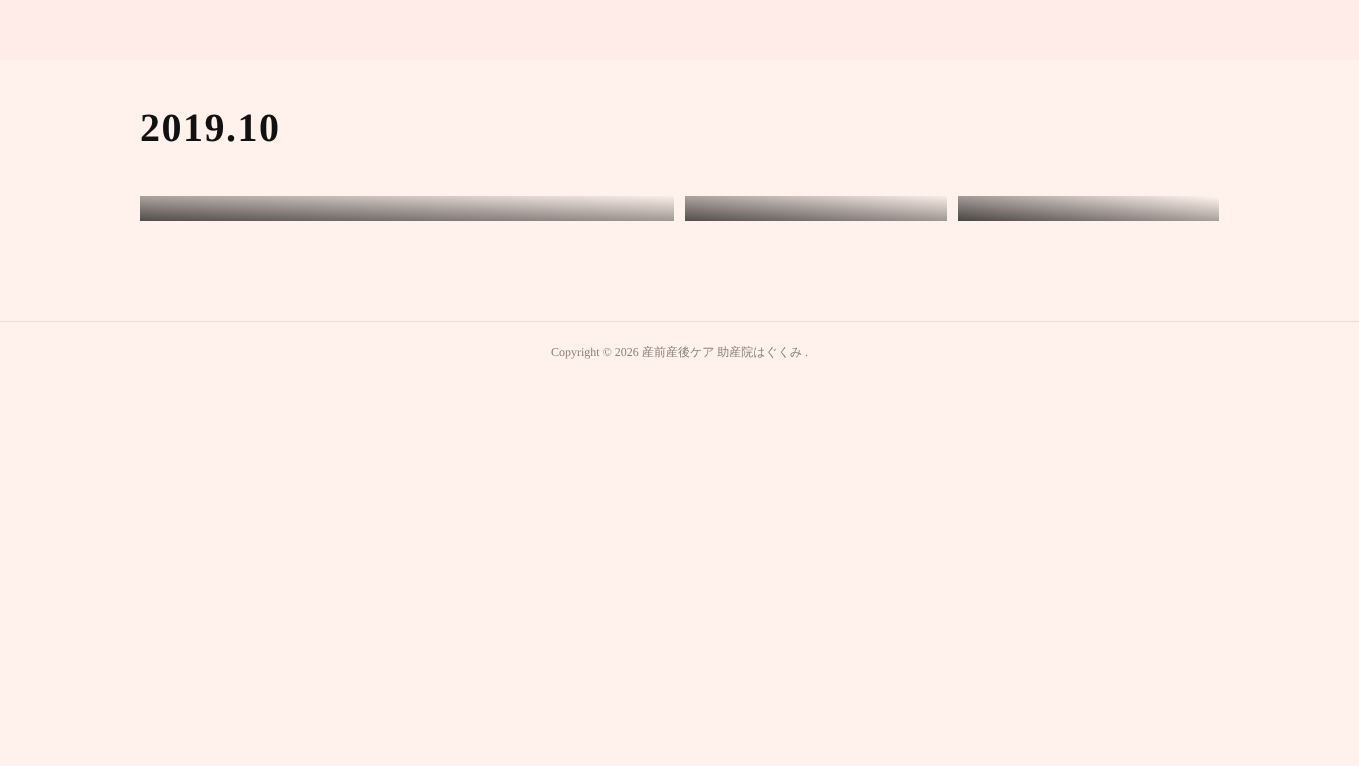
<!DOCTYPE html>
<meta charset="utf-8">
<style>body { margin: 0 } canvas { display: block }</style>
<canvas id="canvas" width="1359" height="766"></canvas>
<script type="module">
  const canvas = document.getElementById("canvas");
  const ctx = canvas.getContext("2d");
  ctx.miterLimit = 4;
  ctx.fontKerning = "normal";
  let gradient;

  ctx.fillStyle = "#fff2ed";
  ctx.fillRect(0, 0, 1359, 766);
  ctx.fillStyle = "#ffece8";
  ctx.fillRect(0, 0, 1359, 60);
  ctx.letterSpacing = "1.5px";
  ctx.font = "bold 40px Liberation Serif";
  ctx.fillStyle = "#111111";
  ctx.fillText("2019.10", 140, 141);
  gradient = ctx.createLinearGradient(408, 184, 406, 233);
  gradient.addColorStop(0, "#fff2ed");
  gradient.addColorStop(1, "#4d4947");
  ctx.fillStyle = gradient;
  ctx.fillRect(140, 196, 534, 25);
  gradient = ctx.createLinearGradient(818, 184, 814, 233);
  gradient.addColorStop(0, "#fff2ed");
  gradient.addColorStop(1, "#4d4947");
  ctx.fillStyle = gradient;
  ctx.fillRect(685, 196, 262, 25);
  gradient = ctx.createLinearGradient(1091, 184, 1086, 233);
  gradient.addColorStop(0, "#fff2ed");
  gradient.addColorStop(1, "#4d4947");
  ctx.fillStyle = gradient;
  ctx.fillRect(958, 196, 261, 25);
  ctx.fillStyle = "#d0e6ef";
  ctx.fillRect(0, 321, 1359, 1);
  ctx.letterSpacing = "0px";
  ctx.font = "12px Liberation Serif";
  ctx.fillStyle = "#88827f";
  ctx.fillText("Copyright © 2026", 551, 356);
  ctx.wordSpacing = "-1px";
  ctx.font = "500 12px WenQuanYi Zen Hei";
  ctx.fillText("産前産後ケア 助産院はぐくみ", 642, 356);
  ctx.wordSpacing = "0px";
  ctx.font = "12px Liberation Serif";
  ctx.fillText(".", 805, 356);
</script>
